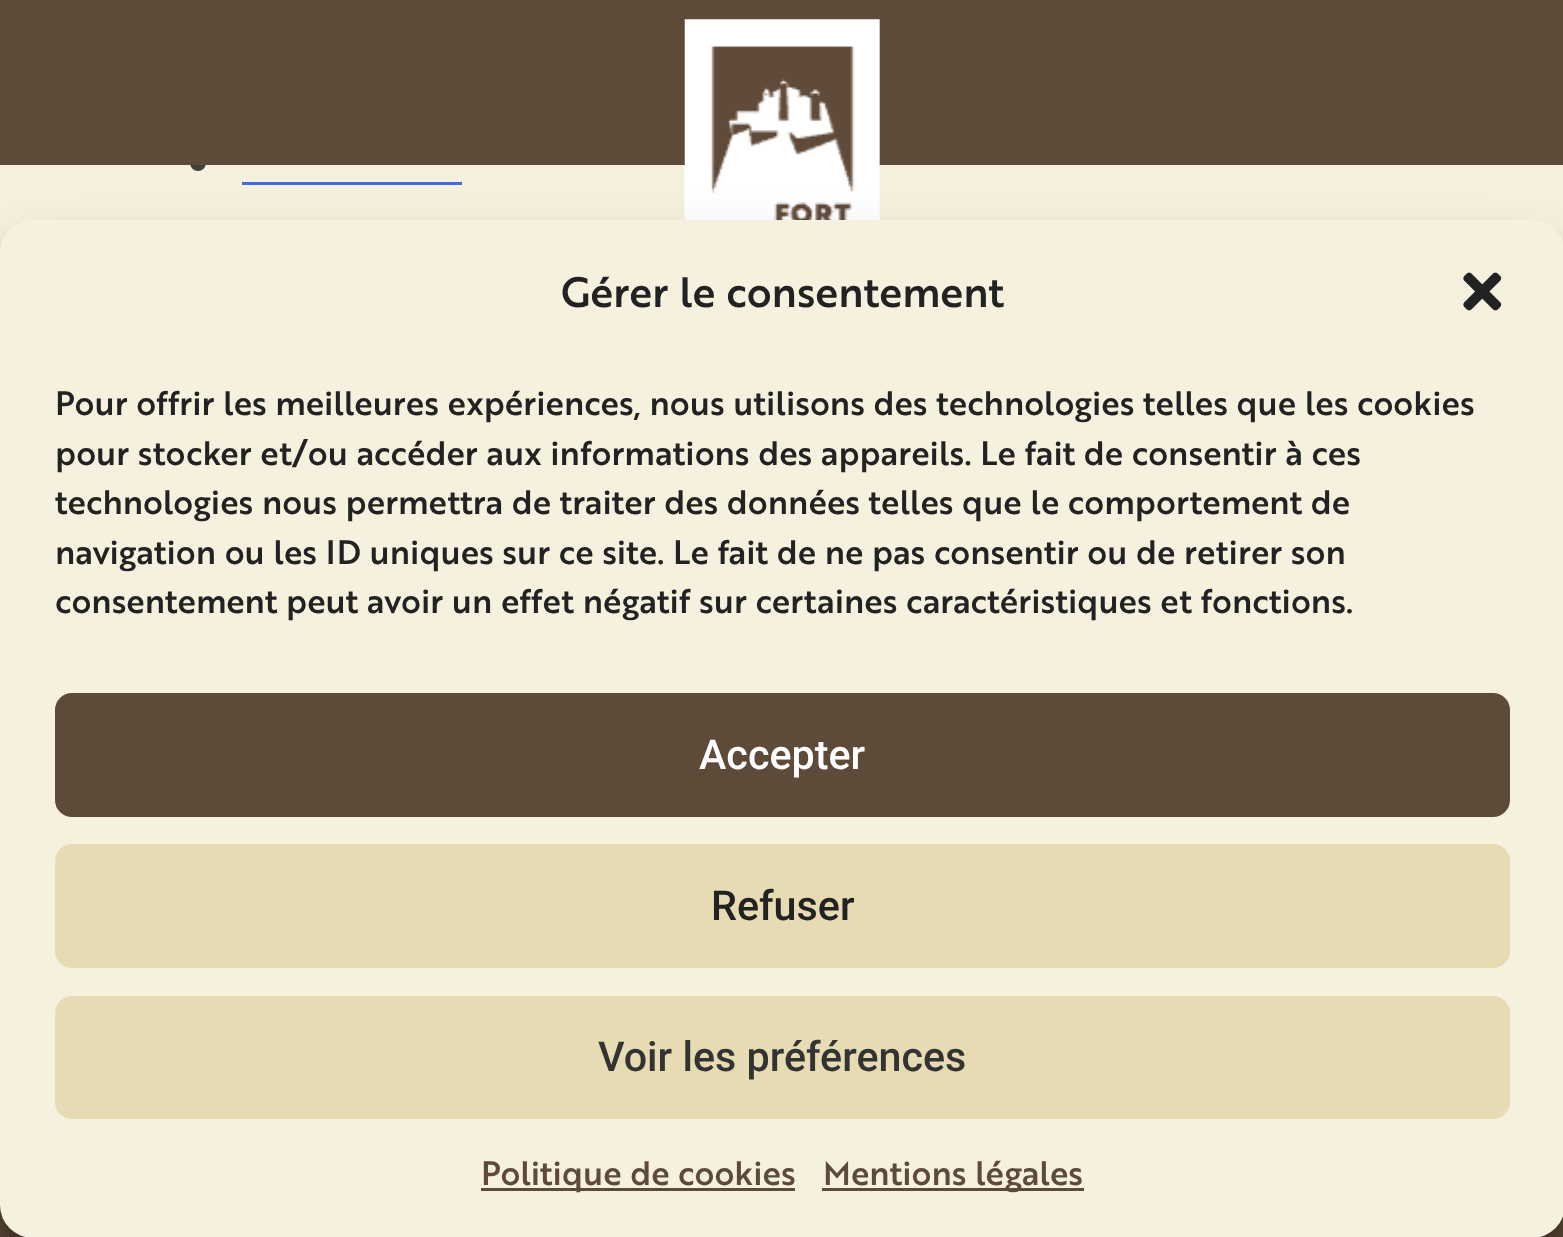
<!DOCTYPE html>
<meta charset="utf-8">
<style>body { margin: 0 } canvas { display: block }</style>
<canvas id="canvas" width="1563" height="1237"></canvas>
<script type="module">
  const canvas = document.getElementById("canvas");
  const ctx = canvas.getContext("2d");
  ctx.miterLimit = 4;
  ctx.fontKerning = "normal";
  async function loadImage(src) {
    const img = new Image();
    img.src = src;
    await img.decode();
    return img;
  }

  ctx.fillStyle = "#f6f1df";
  ctx.fillRect(0, 0, 1563, 1237);
  ctx.fillStyle = "#404040";
  ctx.beginPath();
  ctx.roundRect(190, 154, 16, 17, 8);
  ctx.fill();
  ctx.fillStyle = "#5e4a39";
  ctx.fillRect(0, 0, 1563, 165);
  ctx.drawImage(await loadImage("img1.png"), 684, 19, 196, 201);
  ctx.fillStyle = "#4169e1";
  ctx.fillRect(242, 182, 220, 3);
  ctx.fillStyle = "#5e4a39";
  ctx.fillRect(0, 1205, 1563, 32);
  ctx.fillStyle = "rgba(0, 0, 0, 0.23)";
  ctx.filter = "blur(8px)";
  ctx.beginPath();
  ctx.roundRect(0, 237, 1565, 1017, 33);
  ctx.fill();
  ctx.filter = "none";
  ctx.fillStyle = "rgba(0, 0, 0, 0.19)";
  ctx.filter = "blur(27.5px)";
  ctx.beginPath();
  ctx.roundRect(0, 248, 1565, 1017, 33);
  ctx.fill();
  ctx.filter = "none";
  ctx.fillStyle = "#f6f1df";
  ctx.beginPath();
  ctx.roundRect(0, 220, 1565, 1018, 33);
  ctx.fill();
  ctx.font = "500 41.25px 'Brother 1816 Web'";
  ctx.fillStyle = "#222222";
  ctx.fillText("Gérer le consentement", 561, 307);
  ctx.drawImage(await loadImage("img2.png"), 1463, 272, 39, 39);
  ctx.font = "500 33px 'Brother 1816 Web'";
  ctx.fillText("Pour offrir les meilleures expériences, nous utilisons des technologies telles que les cookies", 55, 415);
  ctx.fillText("pour stocker et/ou accéder aux informations des appareils. Le fait de consentir à ces", 55, 465);
  ctx.fillText("technologies nous permettra de traiter des données telles que le comportement de", 55, 514);
  ctx.fillText("navigation ou les ID uniques sur ce site. Le fait de ne pas consentir ou de retirer son", 55, 564);
  ctx.fillText("consentement peut avoir un effet négatif sur certaines caractéristiques et fonctions.", 55, 613);
  ctx.fillStyle = "#5e4a39";
  ctx.beginPath();
  ctx.roundRect(56.5, 694.5, 1452, 121, 15.5);
  ctx.fill();
  ctx.strokeStyle = "#5e4a39";
  ctx.lineWidth = 3;
  ctx.stroke();
  ctx.font = "500 41.25px Roboto";
  ctx.fillStyle = "#ffffff";
  ctx.fillText("Accepter", 699, 769);
  ctx.fillStyle = "#e6dbb2";
  ctx.beginPath();
  ctx.roundRect(56.5, 845.5, 1452, 121, 15.5);
  ctx.fill();
  ctx.strokeStyle = "#e6dbb2";
  ctx.stroke();
  ctx.fillStyle = "#222222";
  ctx.fillText("Refuser", 711, 920);
  ctx.fillStyle = "#e6dbb2";
  ctx.beginPath();
  ctx.roundRect(56.5, 997.5, 1452, 120, 15.5);
  ctx.fill();
  ctx.stroke();
  ctx.fillStyle = "#333333";
  ctx.fillText("Voir les préférences", 598, 1071);
  ctx.fillStyle = "#5e4a39";
  ctx.fillRect(481, 1188, 314, 3);
  ctx.font = "500 33px 'Brother 1816 Web'";
  ctx.fillText("Politique de cookies", 481, 1185);
  ctx.fillRect(822, 1188, 262, 3);
  ctx.fillText("Mentions légales", 823, 1185);
</script>
